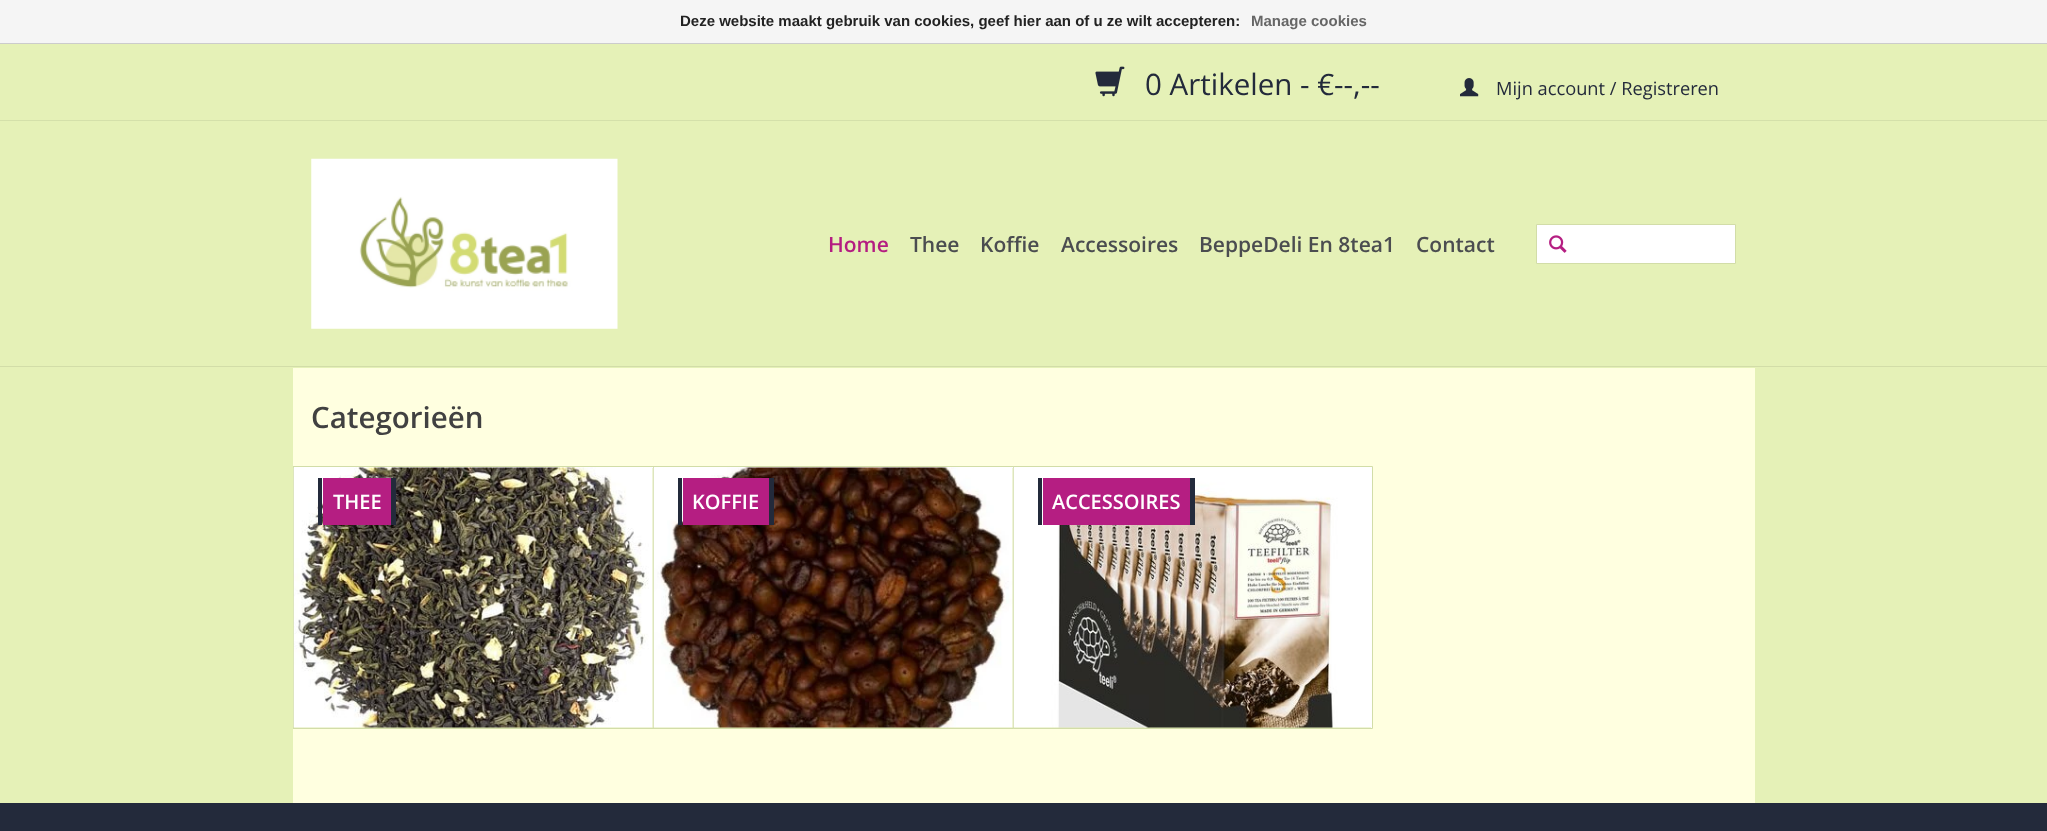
<!DOCTYPE html>
<meta charset="utf-8">
<style>body { margin: 0 } canvas { display: block }</style>
<canvas id="canvas" width="2047" height="831"></canvas>
<script type="module">
  const canvas = document.getElementById("canvas");
  const ctx = canvas.getContext("2d");
  ctx.miterLimit = 4;
  ctx.fontKerning = "normal";
  async function loadImage(src) {
    const img = new Image();
    img.src = src;
    await img.decode();
    return img;
  }

  ctx.fillStyle = "#e5f1b7";
  ctx.fillRect(0, 0, 2047, 831);
  ctx.fillStyle = "#f5f5f5";
  ctx.fillRect(0, 0, 2047, 43);
  ctx.fillStyle = "#cccccc";
  ctx.fillRect(0, 43, 2047, 1);
  ctx.font = "bold 15px Liberation Sans";
  ctx.fillStyle = "#222222";
  ctx.fillText("Deze website maakt gebruik van cookies, geef hier aan of u ze wilt accepteren:", 680, 26);
  ctx.fillStyle = "#666666";
  ctx.fillText("Manage cookies", 1251, 26);
  ctx.fillStyle = "#d2dda8";
  ctx.fillRect(0, 366, 2047, 1);
  ctx.fillStyle = "#d4e0aa";
  ctx.fillRect(0, 120, 2047, 1);
  ctx.drawImage(await loadImage("img1.png"), 1095, 66, 30, 31);
  ctx.font = "29.5px Open Sans";
  ctx.fillStyle = "#232a3b";
  ctx.fillText("0 Artikelen - €--,--", 1145, 95);
  ctx.drawImage(await loadImage("img2.png"), 1460, 78, 19, 19);
  ctx.font = "18.25px Open Sans";
  ctx.fillText("Mijn account / Registreren", 1496, 95);
  ctx.drawImage(await loadImage("img3.png"), 311, 158, 307, 171);
  ctx.font = "600 21px Open Sans";
  ctx.fillStyle = "#b41d81";
  ctx.fillText("Home", 828, 252);
  ctx.fillStyle = "#4b4d50";
  ctx.fillText("Thee", 910, 252);
  ctx.fillText("Koffie", 980, 252);
  ctx.fillText("Accessoires", 1061, 252);
  ctx.fillText("BeppeDeli En 8tea1", 1199, 252);
  ctx.fillText("Contact", 1416, 252);
  ctx.fillStyle = "#ffffff";
  ctx.beginPath();
  ctx.rect(1536.5, 224.5, 199, 39);
  ctx.fill();
  ctx.strokeStyle = "#d2dda8";
  ctx.stroke();
  ctx.drawImage(await loadImage("img4.png"), 1549, 235, 18, 18);
  ctx.fillStyle = "#ffffe0";
  ctx.fillRect(293, 368, 1462, 435);
  ctx.font = "600 29.5px Open Sans";
  ctx.fillStyle = "#414141";
  ctx.fillText("Categorieën", 311, 428);
  ctx.fillStyle = "#ffffff";
  ctx.fillRect(294, 467, 359, 1);
  ctx.strokeRect(293.5, 466.5, 360, 262);
  ctx.fillStyle = "#dee9b1";
  ctx.fillRect(294, 468, 359, 260);
  ctx.drawImage(await loadImage("img5.png"), 293, 467, 360, 261);
  ctx.fillStyle = "#b51e82";
  ctx.fillRect(323, 478, 68, 47);
  ctx.font = "600 20px Open Sans";
  ctx.fillStyle = "#ffffff";
  ctx.fillText("THEE", 333, 509);
  ctx.fillStyle = "#232a3b";
  ctx.fillRect(391, 478, 5, 47);
  ctx.fillRect(318, 478, 4, 47);
  ctx.fillStyle = "#ffffff";
  ctx.fillRect(654, 467, 359, 1);
  ctx.strokeRect(653.5, 466.5, 360, 262);
  ctx.fillStyle = "#dee9b1";
  ctx.fillRect(654, 468, 359, 260);
  ctx.drawImage(await loadImage("img6.png"), 653, 467, 360, 261);
  ctx.fillStyle = "#b51e82";
  ctx.fillRect(683, 478, 86, 47);
  ctx.fillStyle = "#ffffff";
  ctx.fillText("KOFFIE", 692, 509);
  ctx.fillStyle = "#232a3b";
  ctx.fillRect(769, 478, 5, 47);
  ctx.fillRect(678, 478, 4, 47);
  ctx.fillStyle = "#ffffff";
  ctx.beginPath();
  ctx.rect(1013.5, 466.5, 359, 262);
  ctx.fill();
  ctx.stroke();
  ctx.fillStyle = "#dee9b1";
  ctx.fillRect(1014, 727, 357, 1);
  ctx.drawImage(await loadImage("img7.png"), 1013, 467, 358, 261);
  ctx.fillStyle = "#b51e82";
  ctx.fillRect(1043, 478, 147, 47);
  ctx.fillStyle = "#ffffff";
  ctx.fillText("ACCESSOIRES", 1052, 509);
  ctx.fillStyle = "#232a3b";
  ctx.fillRect(1190, 478, 5, 47);
  ctx.fillRect(1038, 478, 4, 47);
  ctx.fillRect(0, 803, 2047, 28);
</script>
